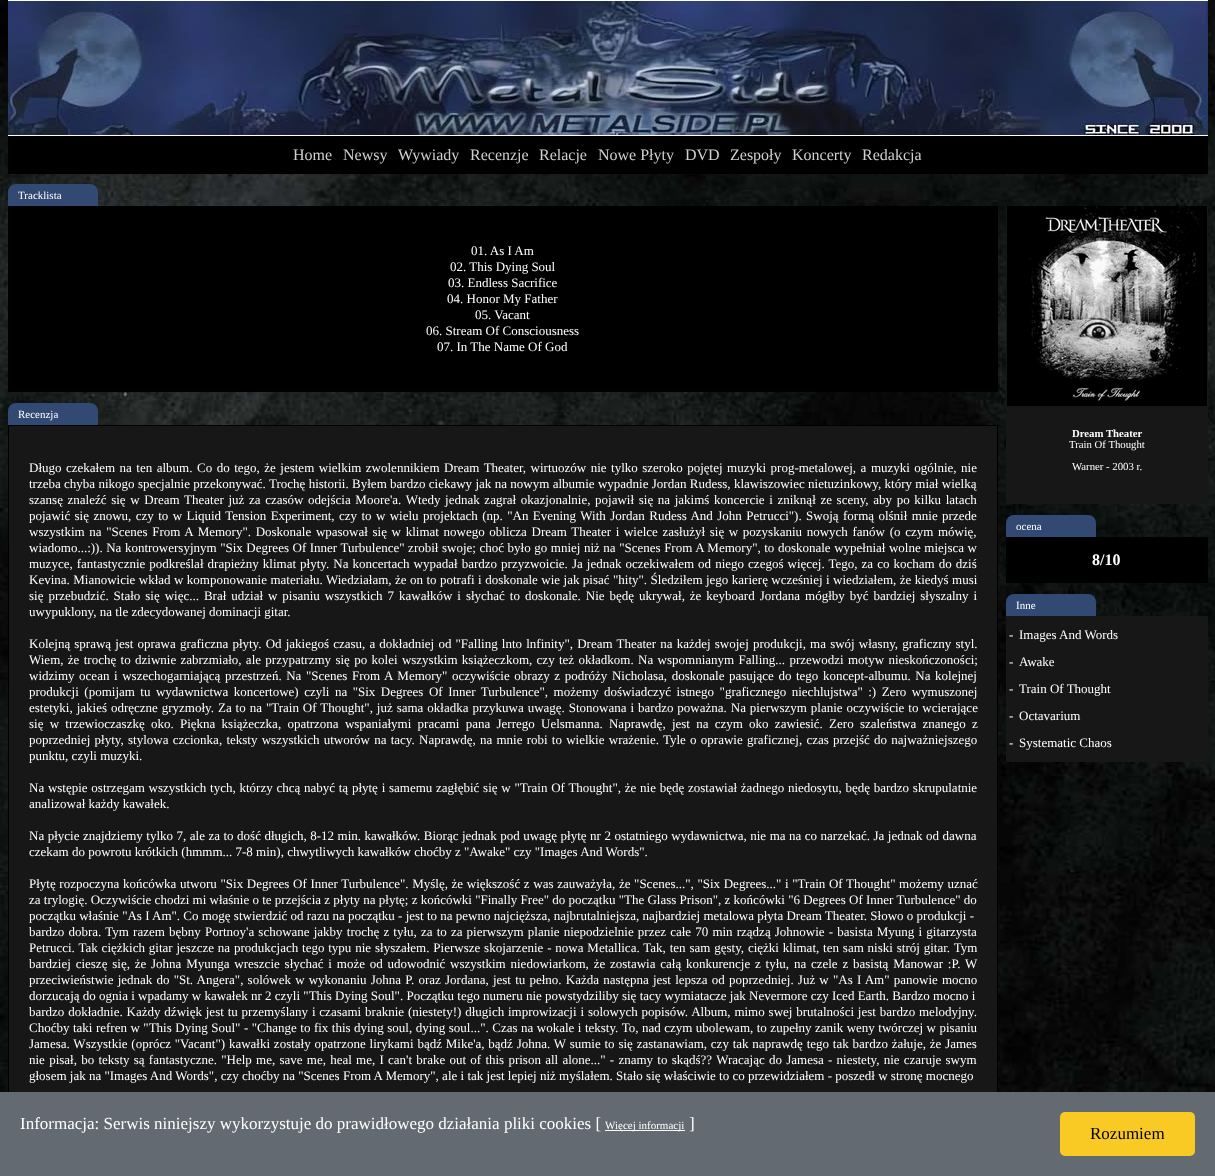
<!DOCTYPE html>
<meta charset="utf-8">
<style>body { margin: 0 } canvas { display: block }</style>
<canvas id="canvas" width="1215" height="1176"></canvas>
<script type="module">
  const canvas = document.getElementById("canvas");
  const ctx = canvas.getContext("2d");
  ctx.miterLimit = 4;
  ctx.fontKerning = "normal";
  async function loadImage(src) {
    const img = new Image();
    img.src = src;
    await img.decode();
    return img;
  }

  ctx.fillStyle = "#ffffff";
  ctx.fillRect(0, 0, 1215, 1176);
  ctx.drawImage(await loadImage("img1.png"), 0, 0, 1215, 1092);
  ctx.drawImage(await loadImage("img2.png"), 8, 1, 1200, 134);
  ctx.fillRect(8, 0, 1200, 1);
  ctx.fillRect(8, 135, 1200, 1);
  ctx.fillStyle = "#000000";
  ctx.fillRect(8, 136, 1200, 38);
  ctx.font = "16px Liberation Serif";
  ctx.fillStyle = "#d0d0d0";
  ctx.fillText("Home", 293, 160);
  ctx.fillText("Newsy", 343, 160);
  ctx.fillText("Wywiady", 398, 160);
  ctx.fillText("Recenzje", 470, 160);
  ctx.fillText("Relacje", 539, 160);
  ctx.fillText("Nowe Płyty", 598, 160);
  ctx.fillText("DVD", 685, 160);
  ctx.fillText("Zespoły", 730, 160);
  ctx.fillText("Koncerty", 792, 160);
  ctx.fillText("Redakcja", 862, 160);
  ctx.fillStyle = "#324974";
  ctx.beginPath();
  ctx.roundRect(8, 184, 90, 22, [8, 8, 0, 0]);
  ctx.fill();
  ctx.font = "11px Liberation Serif";
  ctx.fillStyle = "#ffffff";
  ctx.fillText("Tracklista", 18, 199);
  ctx.fillStyle = "#000000";
  ctx.fillRect(8, 206, 990, 186);
  ctx.font = "13px Liberation Serif";
  ctx.fillStyle = "#ffffff";
  ctx.fillText("01. As I Am", 471, 255);
  ctx.fillText("02. This Dying Soul", 450, 271);
  ctx.fillText("03. Endless Sacrifice", 448, 287);
  ctx.fillText("04. Honor My Father", 447, 303);
  ctx.fillText("05. Vacant", 475, 319);
  ctx.fillText("06. Stream Of Consciousness", 426, 335);
  ctx.fillText("07. In The Name Of God", 437, 351);
  ctx.fillStyle = "#324974";
  ctx.beginPath();
  ctx.roundRect(8, 403, 90, 22, [8, 8, 0, 0]);
  ctx.fill();
  ctx.font = "11px Liberation Serif";
  ctx.fillStyle = "#ffffff";
  ctx.fillText("Recenzja", 18, 418);
  ctx.fillStyle = "#171717";
  ctx.fillRect(9, 426, 988, 666);
  ctx.fillStyle = "#000000";
  ctx.fillRect(8, 425, 990, 1);
  ctx.fillRect(997, 425, 1, 667);
  ctx.fillRect(8, 425, 1, 667);
  ctx.wordSpacing = "1.25px";
  ctx.font = "13px Liberation Serif";
  ctx.fillStyle = "#ffffff";
  ctx.fillText("Długo czekałem na ten album. Co do tego, że jestem wielkim zwolennikiem Dream Theater, wirtuozów nie tylko szeroko pojętej muzyki prog-metalowej, a muzyki ogólnie, nie", 29, 472);
  ctx.wordSpacing = "0.1px";
  ctx.fillText("trzeba chyba nikogo specjalnie przekonywać. Trochę historii. Byłem bardzo ciekawy jak na nowym albumie wypadnie Jordan Rudess, klawiszowiec nietuzinkowy, który miał wielką", 29, 488);
  ctx.wordSpacing = "1.4px";
  ctx.fillText("szansę znaleźć się w Dream Theater już za czasów odejścia Moore'a. Wtedy jednak zagrał okazjonalnie, pojawił się na jakimś koncercie i zniknął ze sceny, aby po kilku latach", 29, 504);
  ctx.wordSpacing = "1.15px";
  ctx.fillText("pojawić się znowu, czy to w Liquid Tension Experiment, czy to w wielu projektach (np. \"An Evening With Jordan Rudess And John Petrucci\"). Swoją formą olśnił mnie przede", 29, 520);
  ctx.wordSpacing = "1.4px";
  ctx.fillText("wszystkim na \"Scenes From A Memory\". Doskonale wpasował się w klimat nowego oblicza Dream Theater i wielce zasłużył się w pozyskaniu nowych fanów (o czym mówię,", 29, 536);
  ctx.wordSpacing = "0.3px";
  ctx.fillText("wiadomo...:)). Na kontrowersyjnym \"Six Degrees Of Inner Turbulence\" zrobił swoje; choć było go mniej niż na \"Scenes From A Memory\", to doskonale wypełniał wolne miejsca w", 29, 552);
  ctx.wordSpacing = "0.8px";
  ctx.fillText("muzyce, fantastycznie podkreślał drapieżny klimat płyty. Na koncertach wypadał bardzo przyzwoicie. Ja jednak oczekiwałem od niego czegoś więcej. Tego, za co kocham do dziś", 29, 568);
  ctx.wordSpacing = "0.2px";
  ctx.fillText("Kevina. Mianowicie wkład w komponowanie materiału. Wiedziałam, że on to potrafi i doskonale wie jak pisać \"hity\". Śledziłem jego karierę wcześniej i wiedziałem, że kiedyś musi", 29, 584);
  ctx.wordSpacing = "1.7px";
  ctx.fillText("się przebudzić. Stało się więc... Brał udział w pisaniu wszystkich 7 kawałków i słychać to doskonale. Nie będę ukrywał, że keyboard Jordana mógłby być bardziej słyszalny i", 29, 600);
  ctx.wordSpacing = "0px";
  ctx.fillText("uwypuklony, na tle zdecydowanej dominacji gitar.", 29, 616);
  ctx.wordSpacing = "0.9px";
  ctx.fillText("Kolejną sprawą jest oprawa graficzna płyty. Od jakiegoś czasu, a dokładniej od \"Falling lnto lnfinity\", Dream Theater na każdej swojej produkcji, ma swój własny, graficzny styl.", 29, 648);
  ctx.wordSpacing = "1.1px";
  ctx.fillText("Wiem, że trochę to dziwnie zabrzmiało, ale przypatrzmy się po kolei wszystkim książeczkom, czy też okładkom. Na wspomnianym Falling... przewodzi motyw nieskończoności;", 29, 664);
  ctx.wordSpacing = "1.35px";
  ctx.fillText("widzimy ocean i wszechogarniającą przestrzeń. Na \"Scenes From A Memory\" oczywiście obrazy z podróży Nicholasa, doskonale pasujące do tego koncept-albumu. Na kolejnej", 29, 680);
  ctx.wordSpacing = "2.25px";
  ctx.fillText("produkcji (pomijam tu wydawnictwa koncertowe) czyli na \"Six Degrees Of Inner Turbulence\", możemy doświadczyć istnego \"graficznego niechlujstwa\" :) Zero wymuszonej", 29, 696);
  ctx.wordSpacing = "0.7px";
  ctx.fillText("estetyki, jakieś odręczne gryzmoły. Za to na \"Train Of Thought\", już sama okładka przykuwa uwagę. Stonowana i bardzo poważna. Na pierwszym planie oczywiście to wcierające", 29, 712);
  ctx.wordSpacing = "3px";
  ctx.fillText("się w trzewioczaszkę oko. Piękna książeczka, opatrzona wspaniałymi pracami pana Jerrego Uelsmanna. Naprawdę, jest na czym oko zawiesić. Zero szaleństwa znanego z", 29, 728);
  ctx.wordSpacing = "1px";
  ctx.fillText("poprzedniej płyty, stylowa czcionka, teksty wszystkich utworów na tacy. Naprawdę, na mnie robi to wielkie wrażenie. Tyle o oprawie graficznej, czas przejść do najważniejszego", 29, 744);
  ctx.wordSpacing = "0px";
  ctx.fillText("punktu, czyli muzyki.", 29, 760);
  ctx.wordSpacing = "0.5px";
  ctx.fillText("Na wstępie ostrzegam wszystkich tych, którzy chcą nabyć tą płytę i samemu zagłębić się w \"Train Of Thought\", że nie będę zostawiał żadnego niedosytu, będę bardzo skrupulatnie", 29, 792);
  ctx.wordSpacing = "0px";
  ctx.fillText("analizował każdy kawałek.", 29, 808);
  ctx.wordSpacing = "0.25px";
  ctx.fillText("Na płycie znajdziemy tylko 7, ale za to dość długich, 8-12 min. kawałków. Biorąc jednak pod uwagę płytę nr 2 ostatniego wydawnictwa, nie ma na co narzekać. Ja jednak od dawna", 29, 840);
  ctx.wordSpacing = "0px";
  ctx.fillText("czekam do powrotu krótkich (hmmm... 7-8 min), chwytliwych kawałków choćby z \"Awake\" czy \"Images And Words\".", 29, 856);
  ctx.wordSpacing = "0.4px";
  ctx.fillText("Płytę rozpoczyna końcówka utworu \"Six Degrees Of Inner Turbulence\". Myślę, że większość z was zauważyła, że \"Scenes...\", \"Six Degrees...\" i \"Train Of Thought\" możemy uznać", 29, 888);
  ctx.wordSpacing = "0px";
  ctx.fillText("za trylogię. Oczywiście chodzi mi właśnie o te przejścia z płyty na płytę; z końcówki \"Finally Free\" do początku \"The Glass Prison\", z końcówki \"6 Degrees Of Inner Turbulence\" do", 29, 904);
  ctx.fillText("początku właśnie \"As I Am\". Co mogę stwierdzić od razu na początku - jest to na pewno najcięższa, najbrutalniejsza, najbardziej metalowa płyta Dream Theater. Słowo o produkcji -", 29, 920);
  ctx.wordSpacing = "0.9px";
  ctx.fillText("bardzo dobra. Tym razem bębny Portnoy'a schowane jakby trochę z tyłu, za to za pierwszym planie niepodzielnie przez całe 70 min rządzą Johnowie - basista Myung i gitarzysta", 29, 936);
  ctx.wordSpacing = "0.6px";
  ctx.fillText("Petrucci. Tak ciężkich gitar jeszcze na produkcjach tego typu nie słyszałem. Pierwsze skojarzenie - nowa Metallica. Tak, ten sam gęsty, ciężki klimat, ten sam niski strój gitar. Tym", 29, 952);
  ctx.wordSpacing = "1.55px";
  ctx.fillText("bardziej cieszę się, że Johna Myunga wreszcie słychać i może od udowodnić wszystkim niedowiarkom, że zostawia całą konkurencje z tyłu, na czele z basistą Manowar :P. W", 29, 968);
  ctx.wordSpacing = "0.95px";
  ctx.fillText("przeciwieństwie jednak do \"St. Angera\", solówek w wykonaniu Johna P. oraz Jordana, jest tu pełno. Każda następna jest lepsza od poprzedniej. Już w \"As I Am\" panowie mocno", 29, 984);
  ctx.wordSpacing = "0px";
  ctx.fillText("dorzucają do ognia i wpadamy w kawałek nr 2 czyli \"This Dying Soul\". Początku tego numeru nie powstydziliby się tacy wymiatacze jak Nevermore czy Iced Earth. Bardzo mocno i", 29, 1000);
  ctx.wordSpacing = "0.6px";
  ctx.fillText("bardzo dokładnie. Każdy dźwięk jest tu przemyślany i czasami braknie (niestety!) długich improwizacji i solowych popisów. Album, mimo swej brutalności jest bardzo melodyjny.", 29, 1016);
  ctx.wordSpacing = "0.25px";
  ctx.fillText("Choćby taki refren w \"This Dying Soul\" - \"Change to fix this dying soul, dying soul...\". Czas na wokale i teksty. To, nad czym ubolewam, to zupełny zanik weny twórczej w pisaniu", 29, 1032);
  ctx.wordSpacing = "0.55px";
  ctx.fillText("Jamesa. Wszystkie (oprócz \"Vacant\") kawałki zostały opatrzone lirykami bądź Mike'a, bądź Johna. W sumie to się zastanawiam, czy tak naprawdę tego tak bardzo żałuje, że James", 29, 1048);
  ctx.wordSpacing = "1px";
  ctx.fillText("nie pisał, bo teksty są fantastyczne. \"Help me, save me, heal me, I can't brake out of this prison all alone...\" - znamy to skądś?? Wracając do Jamesa - niestety, nie czaruje swym", 29, 1064);
  ctx.wordSpacing = "0px";
  ctx.fillText("głosem jak na \"Images And Words\", czy choćby na \"Scenes From A Memory\", ale i tak jest lepiej niż myślałem. Stało się właściwie to co przewidziałem - poszedł w stronę mocnego", 29, 1080);
  ctx.fillStyle = "#171717";
  ctx.fillRect(1006, 206, 202, 298);
  ctx.drawImage(await loadImage("img3.png"), 1007, 206, 200, 200);
  ctx.font = "bold 10.75px Liberation Serif";
  ctx.fillStyle = "#ffffff";
  ctx.fillText("Dream Theater", 1072, 437);
  ctx.font = "10.75px Liberation Serif";
  ctx.fillText("Train Of Thought", 1069, 448);
  ctx.fillText("Warner - 2003 r.", 1072, 470);
  ctx.fillStyle = "#324974";
  ctx.beginPath();
  ctx.roundRect(1006, 515, 90, 22, [8, 8, 0, 0]);
  ctx.fill();
  ctx.font = "11px Liberation Serif";
  ctx.fillStyle = "#ffffff";
  ctx.fillText("ocena", 1016, 530);
  ctx.fillStyle = "#000000";
  ctx.fillRect(1006, 538, 201, 45);
  ctx.fillRect(1006, 537, 202, 1);
  ctx.fillRect(1207, 537, 1, 46);
  ctx.font = "bold 16px Liberation Serif";
  ctx.fillStyle = "#ffffff";
  ctx.fillText("8/10", 1092, 565);
  ctx.fillStyle = "#324974";
  ctx.beginPath();
  ctx.roundRect(1006, 594, 90, 22, [8, 8, 0, 0]);
  ctx.fill();
  ctx.font = "11px Liberation Serif";
  ctx.fillStyle = "#ffffff";
  ctx.fillText("Inne", 1016, 609);
  ctx.fillStyle = "#171717";
  ctx.fillRect(1006, 616, 202, 146);
  ctx.font = "13px Liberation Serif";
  ctx.fillStyle = "#ffffff";
  ctx.fillText("-", 1009, 639);
  ctx.fillText("Images And Words", 1019, 639);
  ctx.fillText("-", 1009, 666);
  ctx.fillText("Awake", 1019, 666);
  ctx.fillText("-", 1009, 693);
  ctx.fillText("Train Of Thought", 1019, 693);
  ctx.fillText("-", 1009, 720);
  ctx.fillText("Octavarium", 1019, 720);
  ctx.fillText("-", 1009, 747);
  ctx.fillText("Systematic Chaos", 1019, 747);
  ctx.fillStyle = "#636a71";
  ctx.fillRect(0, 1092, 1215, 84);
  ctx.font = "17px Liberation Serif";
  ctx.fillStyle = "#ffffff";
  ctx.fillText("Informacja: Serwis niniejszy wykorzystuje do prawidłowego działania pliki cookies [", 20, 1129);
  ctx.fillStyle = "#fafafa";
  ctx.fillRect(605, 1130, 80, 1);
  ctx.font = "11px Liberation Serif";
  ctx.fillStyle = "#ffffff";
  ctx.fillText("Więcej informacji", 605, 1129);
  ctx.font = "17px Liberation Serif";
  ctx.fillText("]", 689, 1129);
  ctx.fillStyle = "#f9ca24";
  ctx.beginPath();
  ctx.roundRect(1060, 1112, 135, 44, 5);
  ctx.fill();
  ctx.fillStyle = "#000000";
  ctx.fillText("Rozumiem", 1090, 1139);
</script>
